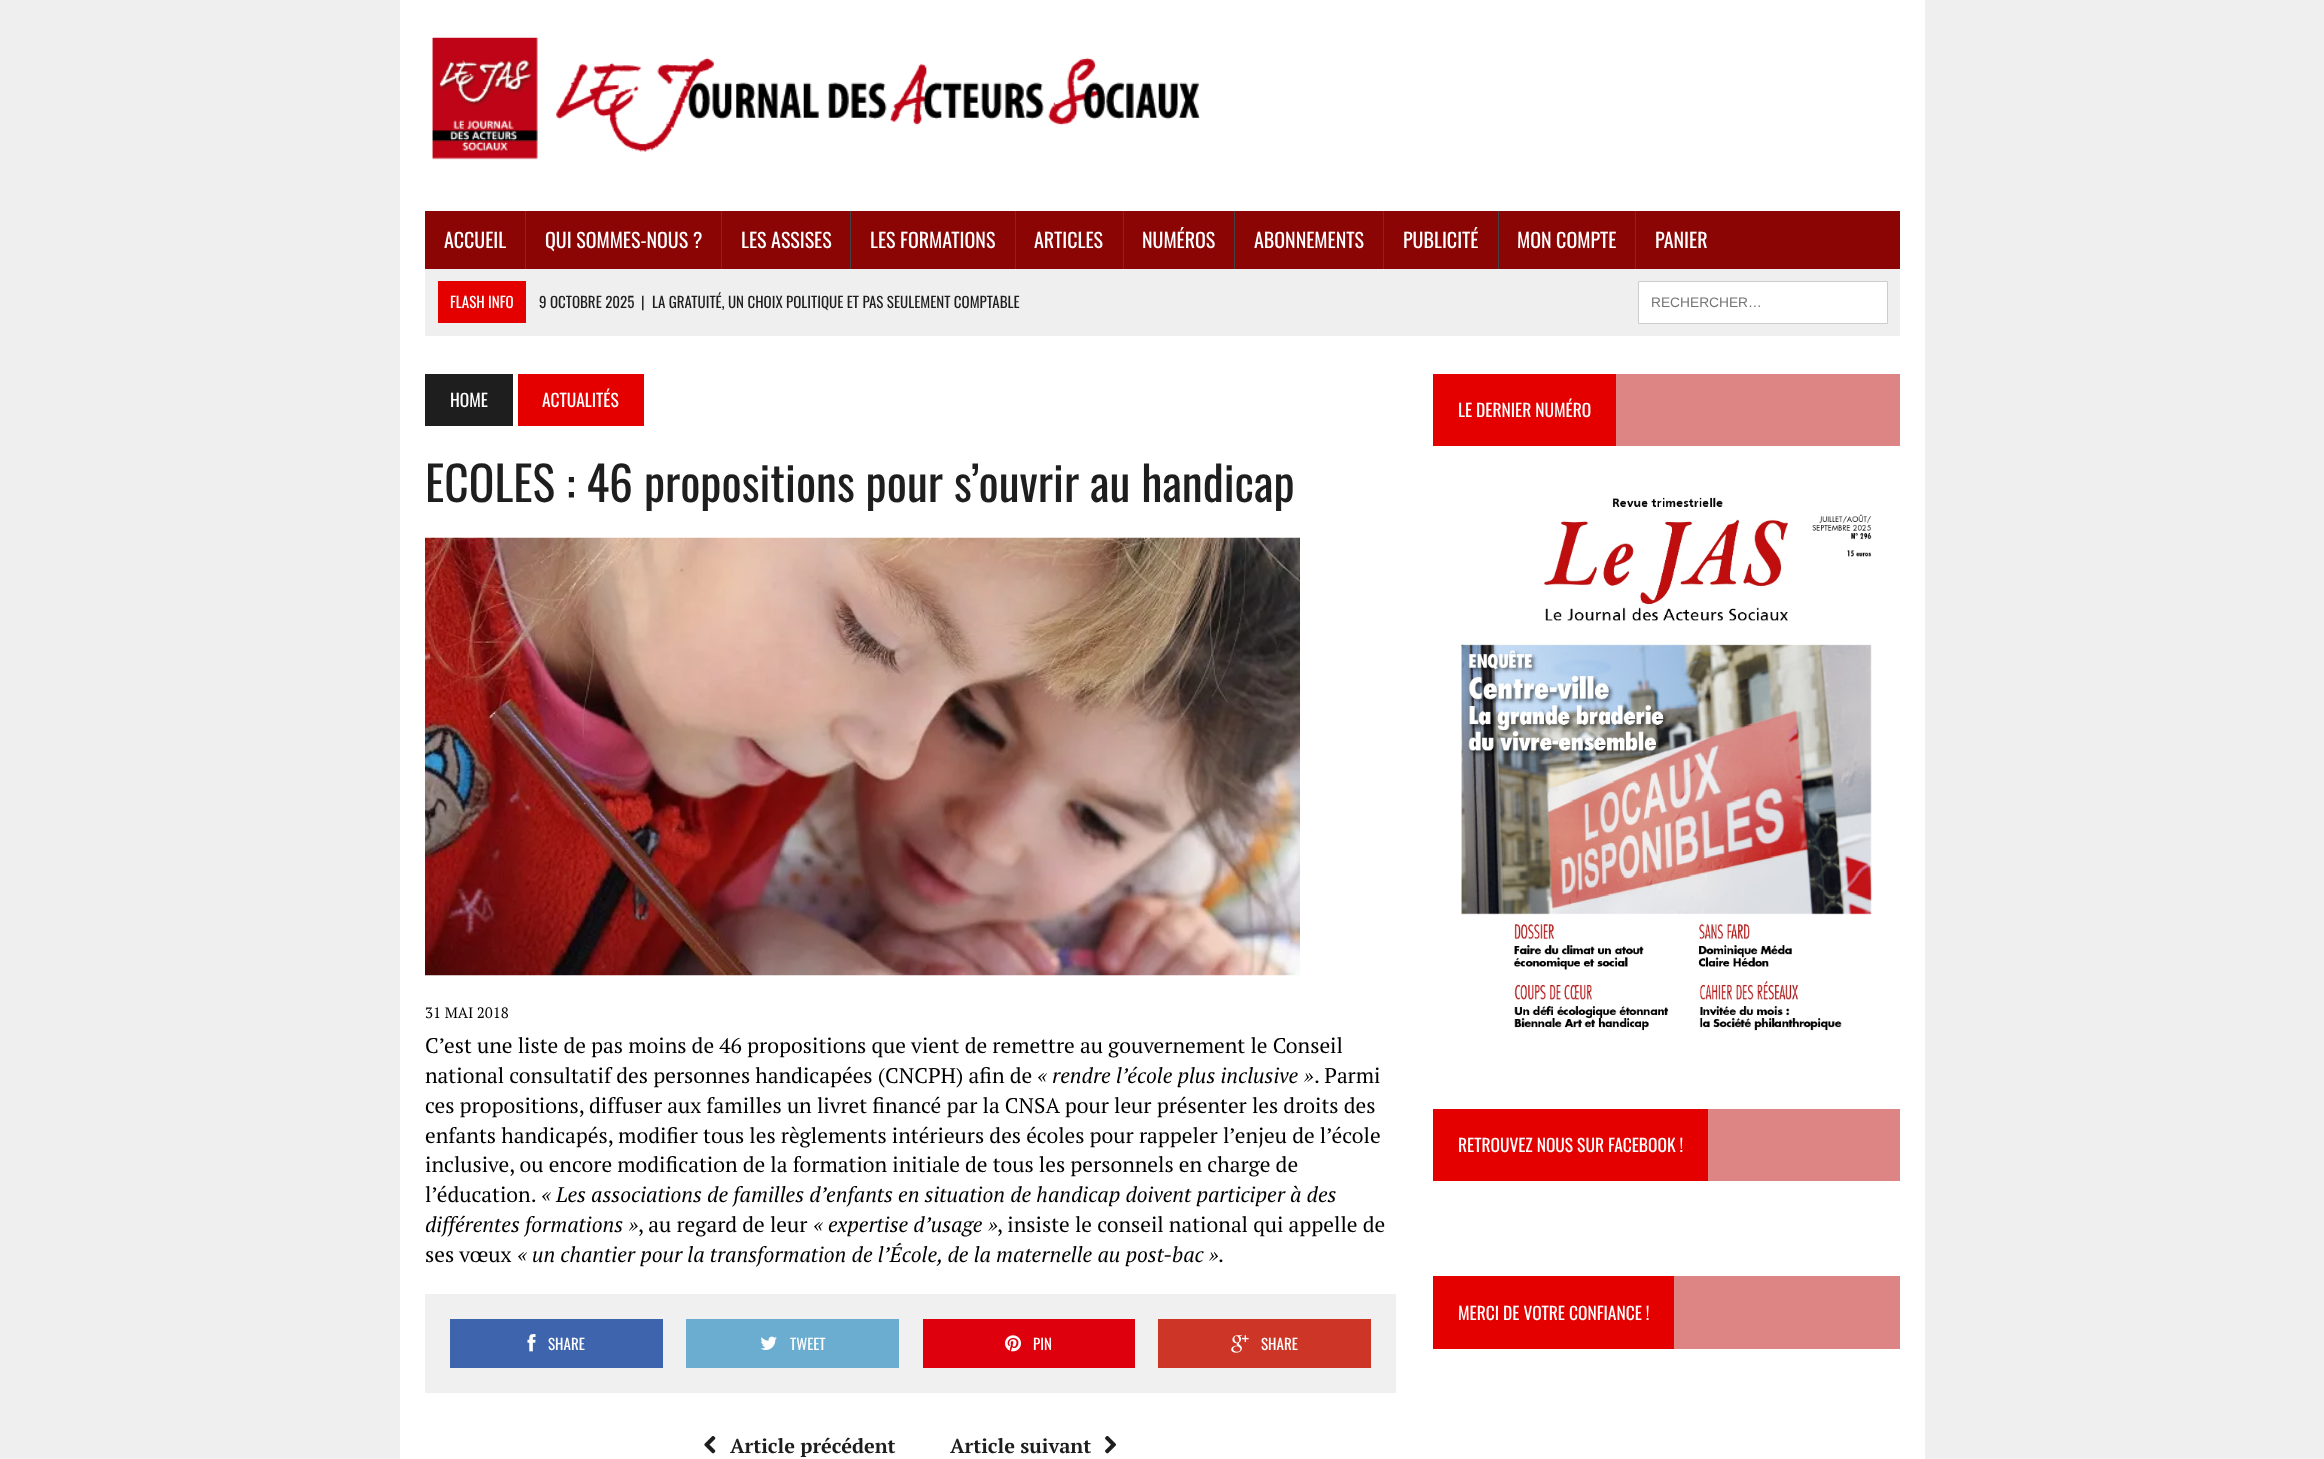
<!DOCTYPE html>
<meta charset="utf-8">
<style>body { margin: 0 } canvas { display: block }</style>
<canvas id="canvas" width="2324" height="1459"></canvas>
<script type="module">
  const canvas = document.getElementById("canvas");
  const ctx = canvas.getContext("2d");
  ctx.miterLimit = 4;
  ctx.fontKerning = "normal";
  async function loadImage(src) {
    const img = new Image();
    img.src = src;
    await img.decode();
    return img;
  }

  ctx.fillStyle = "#efefef";
  ctx.fillRect(0, 0, 2324, 1459);
  ctx.fillStyle = "#ffffff";
  ctx.fillRect(400, 0, 1525, 1459);
  ctx.drawImage(await loadImage("img1.png"), 432, 37, 768, 123);
  ctx.fillStyle = "#8c0505";
  ctx.fillRect(425, 211, 1475, 58);
  ctx.font = "20px Oswald";
  ctx.fillStyle = "#ffffff";
  ctx.fillText("ACCUEIL", 444, 248);
  ctx.fillStyle = "#424242";
  ctx.fillRect(525, 211, 1, 58);
  ctx.fillStyle = "#ffffff";
  ctx.fillText("QUI SOMMES-NOUS ?", 545, 248);
  ctx.fillStyle = "#424242";
  ctx.fillRect(721, 211, 1, 58);
  ctx.fillStyle = "#ffffff";
  ctx.fillText("LES ASSISES", 741, 248);
  ctx.fillStyle = "#424242";
  ctx.fillRect(850, 211, 1, 58);
  ctx.fillStyle = "#ffffff";
  ctx.fillText("LES FORMATIONS", 870, 248);
  ctx.fillStyle = "#424242";
  ctx.fillRect(1015, 211, 1, 58);
  ctx.fillStyle = "#ffffff";
  ctx.fillText("ARTICLES", 1034, 248);
  ctx.fillStyle = "#424242";
  ctx.fillRect(1123, 211, 1, 58);
  ctx.fillStyle = "#ffffff";
  ctx.fillText("NUMÉROS", 1142, 248);
  ctx.fillStyle = "#424242";
  ctx.fillRect(1234, 211, 1, 58);
  ctx.fillStyle = "#ffffff";
  ctx.fillText("ABONNEMENTS", 1254, 248);
  ctx.fillStyle = "#424242";
  ctx.fillRect(1383, 211, 1, 58);
  ctx.fillStyle = "#ffffff";
  ctx.fillText("PUBLICITÉ", 1403, 248);
  ctx.fillStyle = "#424242";
  ctx.fillRect(1498, 211, 1, 58);
  ctx.fillStyle = "#ffffff";
  ctx.fillText("MON COMPTE", 1517, 248);
  ctx.fillStyle = "#424242";
  ctx.fillRect(1635, 211, 1, 58);
  ctx.fillStyle = "#ffffff";
  ctx.fillText("PANIER", 1655, 248);
  ctx.fillStyle = "#efefef";
  ctx.fillRect(425, 269, 1475, 67);
  ctx.fillStyle = "#e50000";
  ctx.fillRect(438, 281, 88, 42);
  ctx.font = "15px Oswald";
  ctx.fillStyle = "#ffffff";
  ctx.fillText("FLASH INFO", 450, 308);
  ctx.fillStyle = "#1f1e1e";
  ctx.fillText("9 OCTOBRE 2025", 539, 308);
  ctx.fillText("|", 641, 308);
  ctx.fillText("LA GRATUITÉ, UN CHOIX POLITIQUE ET PAS SEULEMENT COMPTABLE", 652, 308);
  ctx.fillStyle = "#ffffff";
  ctx.beginPath();
  ctx.rect(1638.5, 281.5, 249, 42);
  ctx.fill();
  ctx.strokeStyle = "#cdcdcd";
  ctx.stroke();
  ctx.font = "13.75px Liberation Sans";
  ctx.fillStyle = "#757575";
  ctx.fillText("RECHERCHER…", 1651, 307);
  ctx.fillStyle = "#1f1e1e";
  ctx.fillRect(425, 374, 88, 52);
  ctx.font = "17.5px Oswald";
  ctx.fillStyle = "#ffffff";
  ctx.fillText("HOME", 450, 407);
  ctx.fillStyle = "#e50000";
  ctx.fillRect(518, 374, 126, 52);
  ctx.fillStyle = "#ffffff";
  ctx.fillText("ACTUALITÉS", 542, 407);
  ctx.font = "47.5px Oswald";
  ctx.fillStyle = "#1f1e1e";
  ctx.fillText("ECOLES : 46 propositions pour s’ouvrir au handicap", 425, 502);
  ctx.drawImage(await loadImage("img2.png"), 425, 537, 875, 439);
  ctx.font = "15px PT Serif";
  ctx.fillStyle = "#000000";
  ctx.fillText("31 MAI 2018", 425, 1018);
  ctx.font = "21.25px PT Serif";
  ctx.fillText("C’est une liste de pas moins de 46 propositions que vient de remettre au gouvernement le Conseil", 425, 1053);
  ctx.fillText("national consultatif des personnes handicapées (CNCPH) afin de", 425, 1083);
  ctx.font = "italic 21.25px PT Serif";
  ctx.fillText("« rendre l’école plus inclusive »", 1037, 1083);
  ctx.font = "21.25px PT Serif";
  ctx.fillText(". Parmi", 1314, 1083);
  ctx.fillText("ces propositions, diffuser aux familles un livret financé par la CNSA pour leur présenter les droits des", 425, 1113);
  ctx.fillText("enfants handicapés, modifier tous les règlements intérieurs des écoles pour rappeler l’enjeu de l’école", 425, 1143);
  ctx.fillText("inclusive, ou encore modification de la formation initiale de tous les personnels en charge de", 425, 1172);
  ctx.fillText("l’éducation.", 425, 1202);
  ctx.font = "italic 21.25px PT Serif";
  ctx.fillText("« Les associations de familles d’enfants en situation de handicap doivent participer à des", 541, 1202);
  ctx.fillText("différentes formations »", 425, 1232);
  ctx.font = "21.25px PT Serif";
  ctx.fillText(", au regard de leur", 638, 1232);
  ctx.font = "italic 21.25px PT Serif";
  ctx.fillText("« expertise d’usage »", 813, 1232);
  ctx.font = "21.25px PT Serif";
  ctx.fillText(", insiste le conseil national qui appelle de", 997, 1232);
  ctx.fillText("ses vœux", 425, 1262);
  ctx.font = "italic 21.25px PT Serif";
  ctx.fillText("« un chantier pour la transformation de l’École, de la maternelle au post-bac »", 517, 1262);
  ctx.font = "21.25px PT Serif";
  ctx.fillText(".", 1218, 1262);
  ctx.fillStyle = "#f0f0f0";
  ctx.fillRect(425, 1294, 971, 99);
  ctx.fillStyle = "#3e64ad";
  ctx.fillRect(450, 1319, 213, 49);
  ctx.drawImage(await loadImage("img3.png"), 527, 1334, 9, 18);
  ctx.font = "15px Oswald";
  ctx.fillStyle = "#ffffff";
  ctx.fillText("SHARE", 548, 1350);
  ctx.fillStyle = "#6aadd1";
  ctx.fillRect(686, 1319, 213, 49);
  ctx.drawImage(await loadImage("img4.png"), 760, 1336, 17, 14);
  ctx.fillStyle = "#ffffff";
  ctx.fillText("TWEET", 790, 1350);
  ctx.fillStyle = "#de010d";
  ctx.fillRect(923, 1319, 212, 49);
  ctx.drawImage(await loadImage("img5.png"), 1005, 1335, 17, 17);
  ctx.fillStyle = "#ffffff";
  ctx.fillText("PIN", 1033, 1350);
  ctx.fillStyle = "#cd3627";
  ctx.fillRect(1158, 1319, 213, 49);
  ctx.drawImage(await loadImage("img6.png"), 1231, 1335, 18, 18);
  ctx.fillStyle = "#ffffff";
  ctx.fillText("SHARE", 1261, 1350);
  ctx.drawImage(await loadImage("img7.png"), 704, 1436, 12, 18);
  ctx.font = "bold 20px PT Serif";
  ctx.fillStyle = "#1f1e1e";
  ctx.fillText("Article précédent", 730, 1453);
  ctx.fillText("Article suivant", 950, 1453);
  ctx.drawImage(await loadImage("img8.png"), 1105, 1436, 11, 18);
  ctx.fillStyle = "#dd8585";
  ctx.fillRect(1616, 374, 284, 72);
  ctx.fillStyle = "#e50000";
  ctx.fillRect(1433, 374, 183, 72);
  ctx.font = "17.5px Oswald";
  ctx.fillStyle = "#ffffff";
  ctx.fillText("LE DERNIER NUMÉRO", 1458, 417);
  ctx.drawImage(await loadImage("img9.png"), 1461, 497, 411, 534);
  ctx.fillStyle = "#dd8585";
  ctx.fillRect(1708, 1109, 192, 72);
  ctx.fillStyle = "#e50000";
  ctx.fillRect(1433, 1109, 275, 72);
  ctx.fillStyle = "#ffffff";
  ctx.fillText("RETROUVEZ NOUS SUR FACEBOOK !", 1458, 1152);
  ctx.fillStyle = "#dd8585";
  ctx.fillRect(1674, 1276, 226, 73);
  ctx.fillStyle = "#e50000";
  ctx.fillRect(1433, 1276, 241, 73);
  ctx.fillStyle = "#ffffff";
  ctx.fillText("MERCI DE VOTRE CONFIANCE !", 1458, 1320);
</script>
